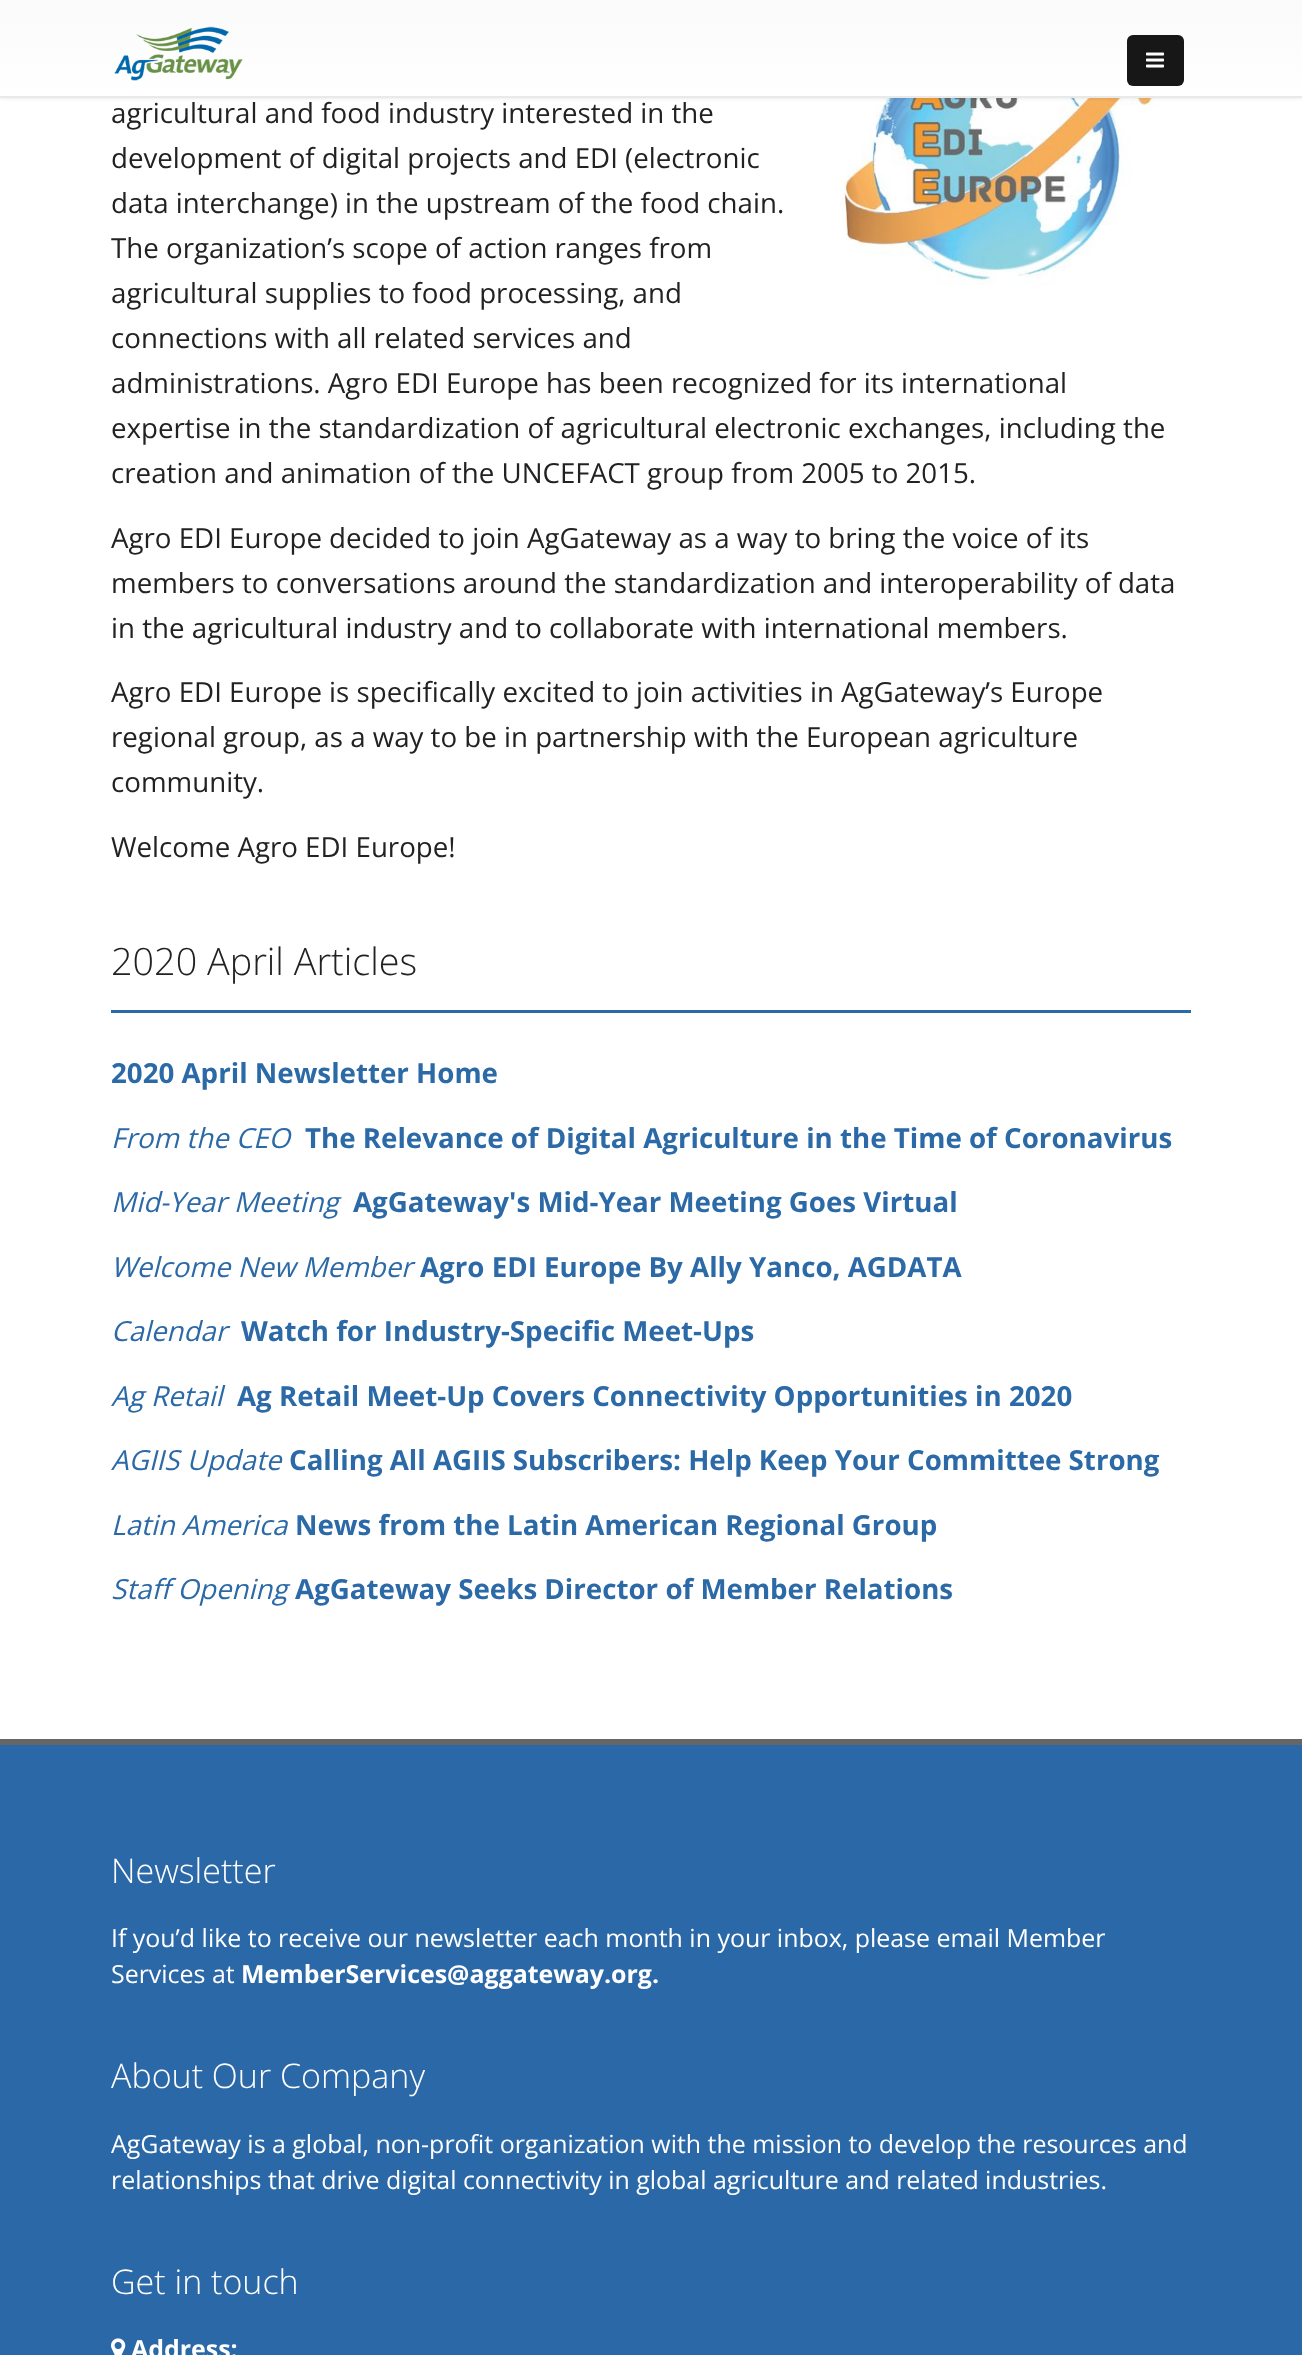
<!DOCTYPE html>
<meta charset="utf-8">
<style>body { margin: 0 } canvas { display: block }</style>
<canvas id="canvas" width="1302" height="2355"></canvas>
<script type="module">
  const canvas = document.getElementById("canvas");
  const ctx = canvas.getContext("2d");
  ctx.miterLimit = 4;
  ctx.fontKerning = "normal";
  async function loadImage(src) {
    const img = new Image();
    img.src = src;
    await img.decode();
    return img;
  }
  let gradient;

  ctx.fillStyle = "#ffffff";
  ctx.fillRect(0, 0, 1302, 2355);
  ctx.drawImage(await loadImage("img3.png"), 840, 98, 336, 187);
  ctx.fillStyle = "rgba(0, 0, 0, 0.1)";
  ctx.filter = "blur(2px)";
  ctx.beginPath();
  ctx.rect(0, -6, 1302, 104);
  ctx.fill();
  ctx.filter = "none";
  gradient = ctx.createLinearGradient(651, -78, 651, 96);
  gradient.addColorStop(0, "#f6f6f6");
  gradient.addColorStop(1, "#ffffff");
  ctx.fillStyle = gradient;
  ctx.fillRect(0, 0, 1302, 96);
  ctx.fillStyle = "#e9e9e9";
  ctx.fillRect(0, 96, 1302, 2);
  ctx.drawImage(await loadImage("img1.png"), 114, 26, 129, 55);
  ctx.fillStyle = "#171717";
  ctx.beginPath();
  ctx.roundRect(1127, 35, 57, 51, 6);
  ctx.fill();
  ctx.drawImage(await loadImage("img2.png"), 1146, 52, 18, 16);
  ctx.font = "27.7px Open Sans";
  ctx.fillStyle = "#222222";
  ctx.fillText("agricultural and food industry interested in the", 111, 123);
  ctx.fillText("development of digital projects and EDI (electronic", 111, 168);
  ctx.fillText("data interchange) in the upstream of the food chain.", 111, 213);
  ctx.fillText("The organization’s scope of action ranges from", 111, 258);
  ctx.fillText("agricultural supplies to food processing, and", 111, 303);
  ctx.fillText("connections with all related services and", 111, 348);
  ctx.fillText("administrations. Agro EDI Europe has been recognized for its international", 111, 393);
  ctx.fillText("expertise in the standardization of agricultural electronic exchanges, including the", 111, 438);
  ctx.fillText("creation and animation of the UNCEFACT group from 2005 to 2015.", 111, 483);
  ctx.fillText("Agro EDI Europe decided to join AgGateway as a way to bring the voice of its", 111, 548);
  ctx.fillText("members to conversations around the standardization and interoperability of data", 111, 593);
  ctx.fillText("in the agricultural industry and to collaborate with international members.", 111, 638);
  ctx.fillText("Agro EDI Europe is specifically excited to join activities in AgGateway’s Europe", 111, 702);
  ctx.fillText("regional group, as a way to be in partnership with the European agriculture", 111, 747);
  ctx.fillText("community.", 111, 792);
  ctx.fillText("Welcome Agro EDI Europe!", 111, 857);
  ctx.fillStyle = "#2b69a7";
  ctx.fillRect(111, 1010, 1080, 3);
  ctx.font = "300 37.75px Open Sans";
  ctx.fillStyle = "#222222";
  ctx.fillText("2020 April Articles", 111, 975);
  ctx.font = "bold 27.7px Open Sans";
  ctx.fillStyle = "#2b69a7";
  ctx.fillText("2020 April Newsletter Home", 111, 1083);
  ctx.font = "italic 27.7px Open Sans";
  ctx.fillText("From the CEO", 111, 1148);
  ctx.font = "bold 27.7px Open Sans";
  ctx.fillText("The Relevance of Digital Agriculture in the Time of Coronavirus", 305, 1148);
  ctx.font = "italic 27.7px Open Sans";
  ctx.fillText("Mid-Year Meeting", 111, 1212);
  ctx.font = "bold 27.7px Open Sans";
  ctx.fillText("AgGateway's Mid-Year Meeting Goes Virtual", 353, 1212);
  ctx.font = "italic 27.7px Open Sans";
  ctx.fillText("Welcome New Member", 111, 1277);
  ctx.font = "bold 27.7px Open Sans";
  ctx.fillText("Agro EDI Europe By Ally Yanco, AGDATA", 420, 1277);
  ctx.font = "italic 27.7px Open Sans";
  ctx.fillText("Calendar", 111, 1341);
  ctx.font = "bold 27.7px Open Sans";
  ctx.fillText("Watch for Industry-Specific Meet-Ups", 241, 1341);
  ctx.font = "italic 27.7px Open Sans";
  ctx.fillText("Ag Retail", 111, 1406);
  ctx.font = "bold 27.7px Open Sans";
  ctx.fillText("Ag Retail Meet-Up Covers Connectivity Opportunities in 2020", 237, 1406);
  ctx.font = "italic 27.7px Open Sans";
  ctx.fillText("AGIIS Update", 111, 1470);
  ctx.font = "bold 27.7px Open Sans";
  ctx.fillText("Calling All AGIIS Subscribers: Help Keep Your Committee Strong", 289, 1470);
  ctx.font = "italic 27.7px Open Sans";
  ctx.fillText("Latin America", 111, 1535);
  ctx.font = "bold 27.7px Open Sans";
  ctx.fillText("News from the Latin American Regional Group", 295, 1535);
  ctx.font = "italic 27.7px Open Sans";
  ctx.fillText("Staff Opening", 111, 1599);
  ctx.font = "bold 27.7px Open Sans";
  ctx.fillText("AgGateway Seeks Director of Member Relations", 295, 1599);
  ctx.fillStyle = "#2b68a7";
  ctx.fillRect(0, 1745, 1302, 610);
  ctx.fillStyle = "#666666";
  ctx.fillRect(0, 1739, 1302, 6);
  ctx.font = "300 34px Open Sans";
  ctx.fillStyle = "#ffffff";
  ctx.fillText("Newsletter", 111, 1883);
  ctx.font = "24.95px Open Sans";
  ctx.fillText("If you’d like to receive our newsletter each month in your inbox, please email Member", 111, 1947);
  ctx.fillText("Services at", 111, 1983);
  ctx.font = "bold 24.95px Open Sans";
  ctx.fillText("MemberServices@aggateway.org.", 241, 1983);
  ctx.font = "300 34px Open Sans";
  ctx.fillText("About Our Company", 111, 2088);
  ctx.font = "24.95px Open Sans";
  ctx.fillText("AgGateway is a global, non-profit organization with the mission to develop the resources and", 111, 2153);
  ctx.fillText("relationships that drive digital connectivity in global agriculture and related industries.", 111, 2189);
  ctx.font = "300 34px Open Sans";
  ctx.fillText("Get in touch", 111, 2294);
  ctx.drawImage(await loadImage("img4.png"), 111, 2338, 15, 17);
  ctx.font = "bold 24.95px Open Sans";
  ctx.fillText("Address:", 131, 2358);
</script>
